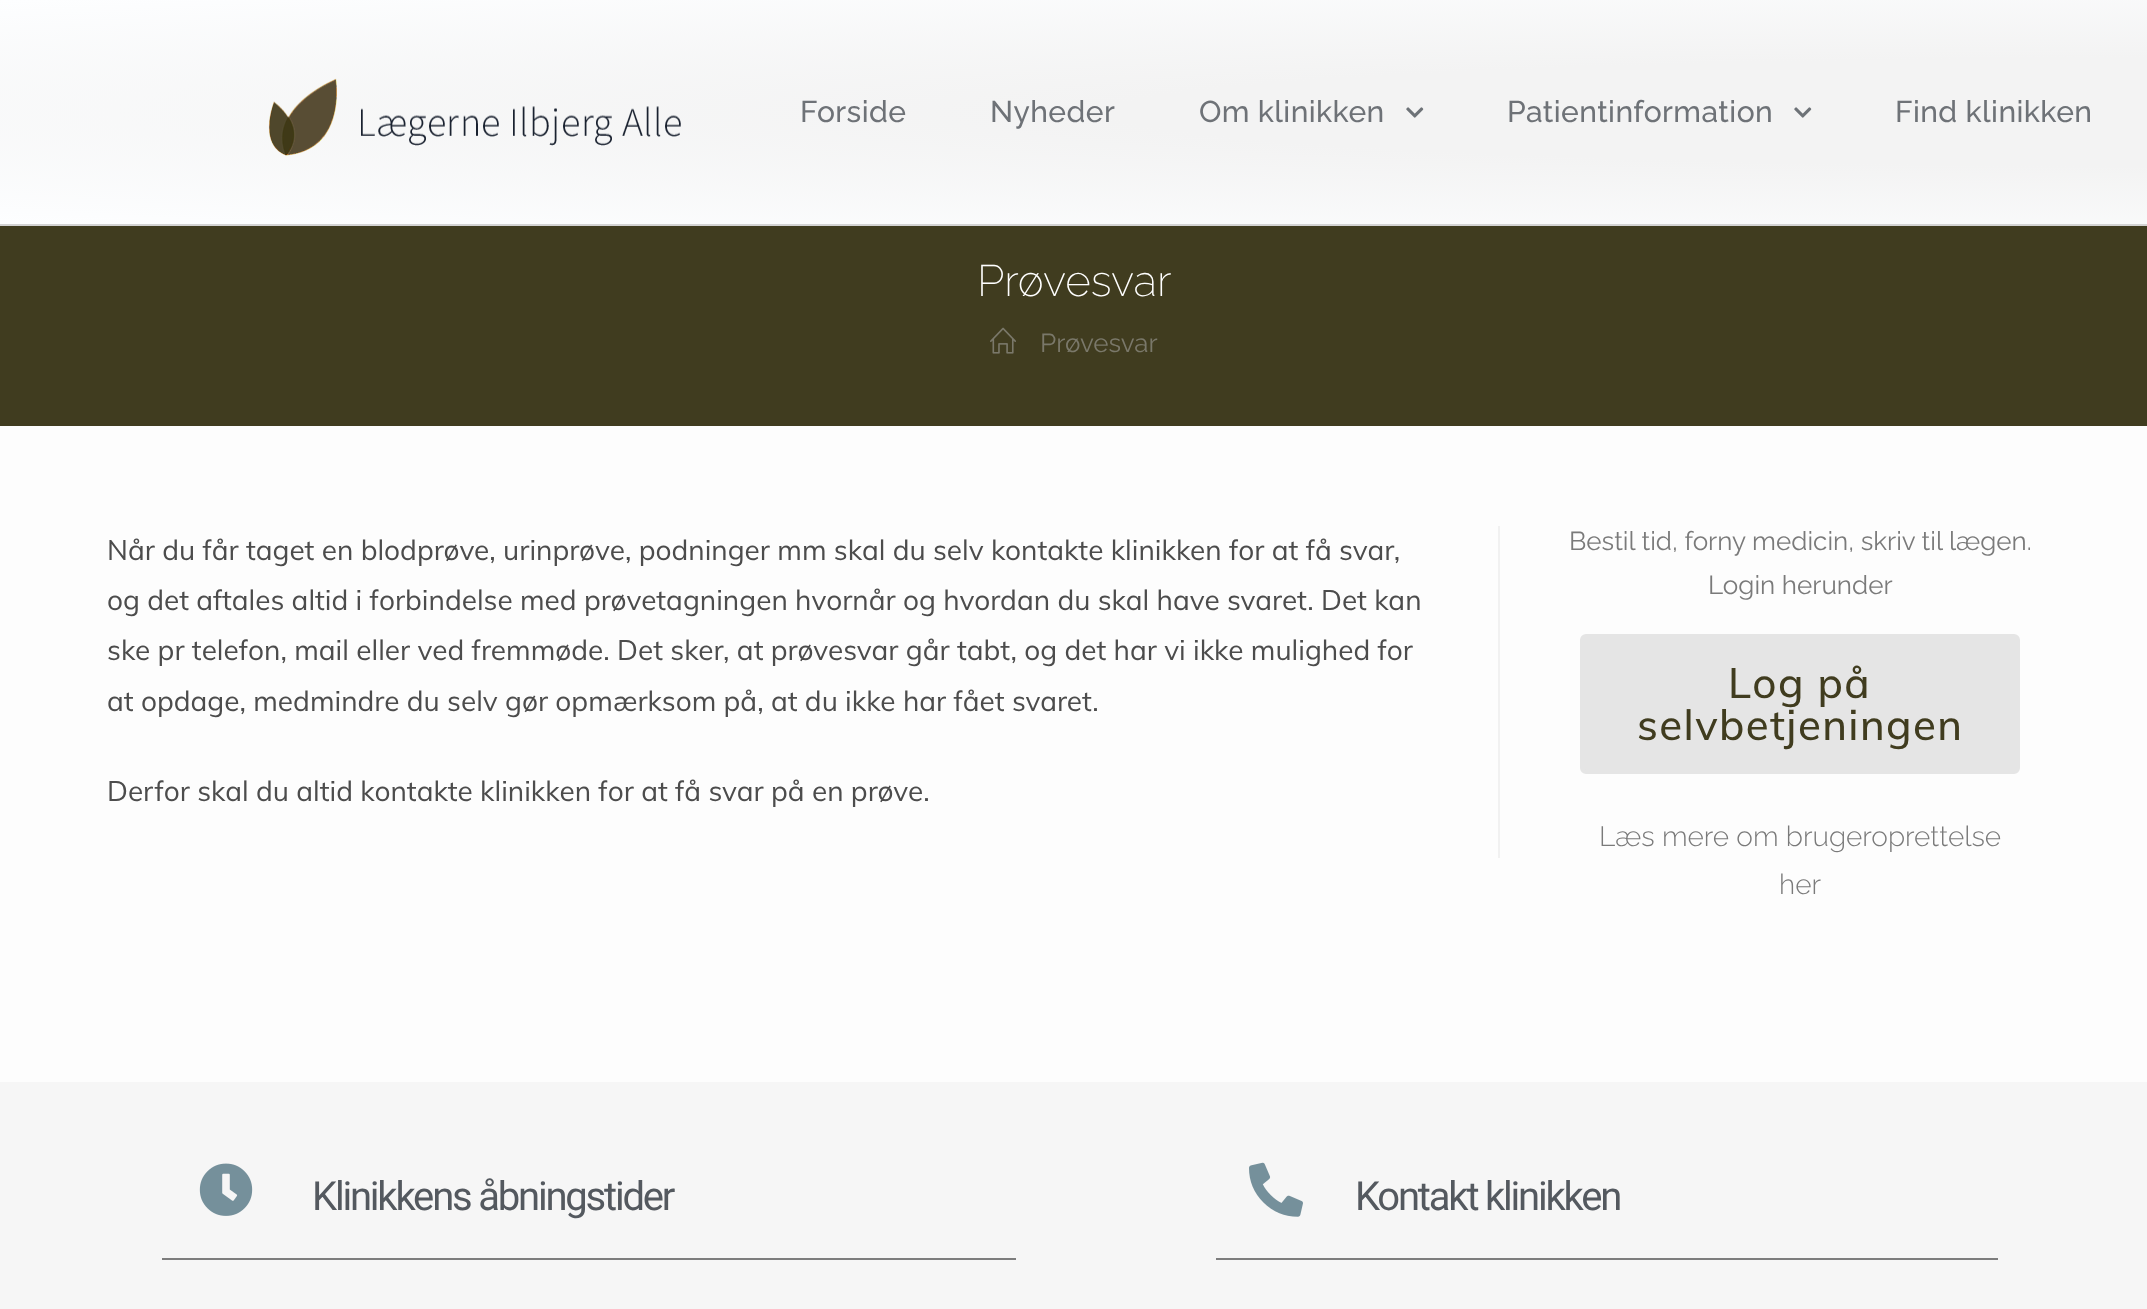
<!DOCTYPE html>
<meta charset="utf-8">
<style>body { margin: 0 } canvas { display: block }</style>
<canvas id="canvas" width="2147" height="1309"></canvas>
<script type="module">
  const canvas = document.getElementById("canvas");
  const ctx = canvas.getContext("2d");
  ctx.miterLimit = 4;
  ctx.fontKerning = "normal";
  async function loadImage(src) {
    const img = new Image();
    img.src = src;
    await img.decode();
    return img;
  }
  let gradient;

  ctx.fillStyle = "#fdfdfd";
  ctx.fillRect(0, 0, 2147, 1309);
  gradient = ctx.createRadialGradient(2148, 2153.52, 0, 2148, 2153.52, 3038);
  gradient.addColorStop(0.34, "#f3f3f3");
  gradient.addColorStop(1, "#fdfeff");
  ctx.fillStyle = gradient;
  ctx.beginPath();
  ctx.rect(0, 0, 2147, 224);
  ctx.save();
  ctx.clip();
  ctx.scale(1, 158 / 3038);
  ctx.fillRect(0, 0, 2147, 25170);
  ctx.restore();
  ctx.fillStyle = "#d3d3d3";
  ctx.fillRect(0, 224, 2147, 2);
  ctx.drawImage(await loadImage("img1.png"), 268, 78, 413, 78);
  ctx.letterSpacing = "0.4px";
  ctx.font = "500 30px Raleway";
  ctx.fillStyle = "#6e7277";
  ctx.fillText("Forside", 800, 122);
  ctx.fillText("Nyheder", 990, 122);
  ctx.fillText("Om klinikken", 1199, 122);
  ctx.drawImage(await loadImage("img2.png"), 1406, 107, 18, 11);
  ctx.fillText("Patientinformation", 1507, 122);
  ctx.drawImage(await loadImage("img2.png"), 1794, 107, 18, 11);
  ctx.fillText("Find klinikken", 1895, 122);
  ctx.fillStyle = "#403c1f";
  ctx.fillRect(0, 226, 2147, 200);
  ctx.letterSpacing = "0px";
  ctx.font = "200 44px Raleway";
  ctx.fillStyle = "#ffffff";
  ctx.fillText("Prøvesvar", 977, 296);
  ctx.drawImage(await loadImage("img3.png"), 990, 327, 26, 27);
  ctx.font = "26px Raleway";
  ctx.fillStyle = "#7a786a";
  ctx.fillText("Prøvesvar", 1040, 352);
  ctx.fillStyle = "#f1f1f1";
  ctx.fillRect(1498, 526, 2, 332);
  ctx.font = "28px Muli";
  ctx.fillStyle = "#4c4c4c";
  ctx.fillText("Når du får taget en blodprøve, urinprøve, podninger mm skal du selv kontakte klinikken for at få svar,", 107, 560);
  ctx.fillText("og det aftales altid i forbindelse med prøvetagningen hvornår og hvordan du skal have svaret. Det kan", 107, 610);
  ctx.fillText("ske pr telefon, mail eller ved fremmøde. Det sker, at prøvesvar går tabt, og det har vi ikke mulighed for", 107, 660);
  ctx.fillText("at opdage, medmindre du selv gør opmærksom på, at du ikke har fået svaret.", 107, 711);
  ctx.fillText("Derfor skal du altid kontakte klinikken for at få svar på en prøve.", 107, 801);
  ctx.font = "26px Raleway";
  ctx.fillStyle = "#7a7a7a";
  ctx.fillText("Bestil tid, forny medicin, skriv til lægen.", 1569, 550);
  ctx.fillText("Login herunder", 1708, 594);
  ctx.fillStyle = "#e5e5e5";
  ctx.beginPath();
  ctx.roundRect(1582, 636, 436, 136, 4);
  ctx.fill();
  ctx.strokeStyle = "#e5e5e5";
  ctx.lineWidth = 4;
  ctx.stroke();
  ctx.letterSpacing = "1.4px";
  ctx.font = "500 42px Muli";
  ctx.fillStyle = "#403c1f";
  ctx.fillText("Log på", 1728, 698);
  ctx.fillText("selvbetjeningen", 1637, 740);
  ctx.letterSpacing = "0px";
  ctx.font = "300 28px Raleway";
  ctx.fillStyle = "#7a7a7a";
  ctx.fillText("Læs mere om brugeroprettelse", 1599, 846);
  ctx.fillText("her", 1779, 894);
  ctx.fillStyle = "#f6f6f6";
  ctx.fillRect(0, 1082, 2147, 227);
  ctx.drawImage(await loadImage("img4.png"), 199, 1163, 54, 53);
  ctx.letterSpacing = "-2.2px";
  ctx.font = "40px Roboto";
  ctx.fillStyle = "#54595f";
  ctx.fillText("Klinikkens åbningstider", 312, 1210);
  ctx.fillStyle = "#7d7d7d";
  ctx.fillRect(162, 1258, 854, 2);
  ctx.drawImage(await loadImage("img5.png"), 1249, 1162, 54, 55);
  ctx.fillStyle = "#54595f";
  ctx.fillText("Kontakt klinikken", 1355, 1210);
  ctx.fillStyle = "#7d7d7d";
  ctx.fillRect(1216, 1258, 782, 2);
</script>
